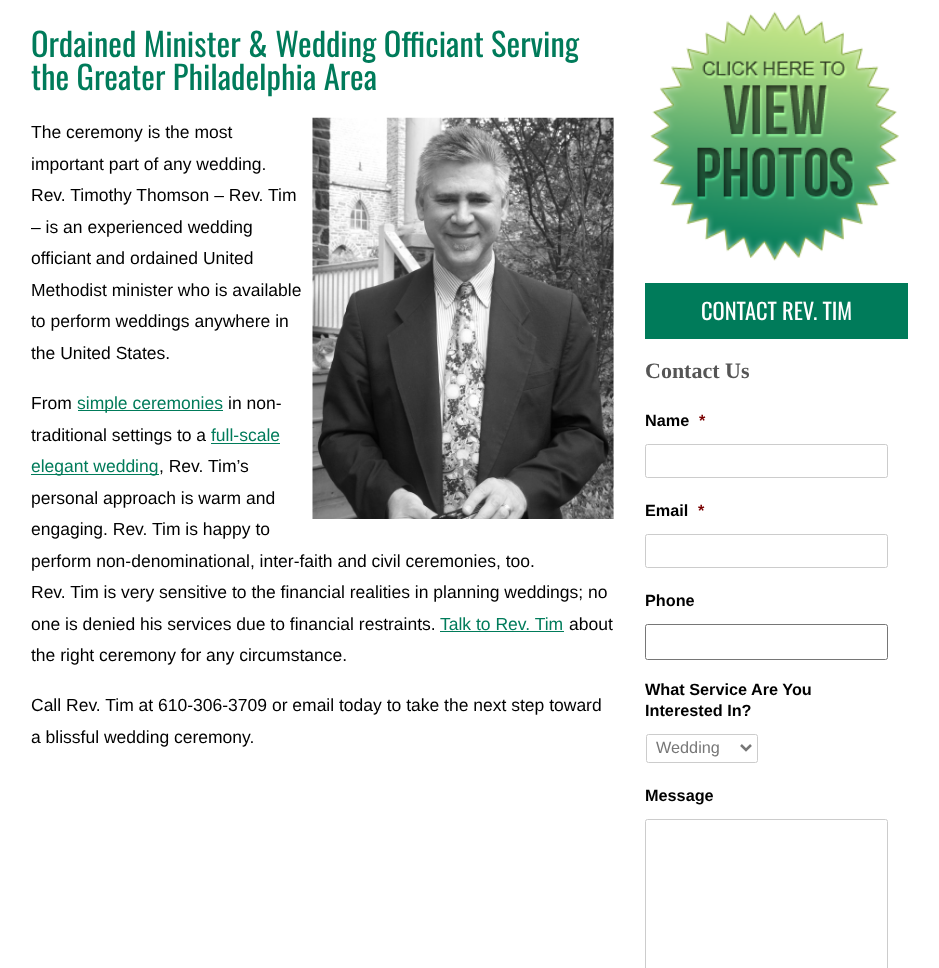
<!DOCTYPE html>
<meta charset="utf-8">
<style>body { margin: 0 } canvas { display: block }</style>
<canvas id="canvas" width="939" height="968"></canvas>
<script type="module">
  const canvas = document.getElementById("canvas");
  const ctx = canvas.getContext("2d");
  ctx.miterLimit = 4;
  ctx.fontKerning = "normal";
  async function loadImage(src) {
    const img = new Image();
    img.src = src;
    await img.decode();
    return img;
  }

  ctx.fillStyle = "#ffffff";
  ctx.fillRect(0, 0, 939, 968);
  ctx.font = "32.5px Oswald";
  ctx.fillStyle = "#007b5a";
  ctx.fillText("Ordained Minister & Wedding Officiant Serving", 31, 57);
  ctx.fillText("the Greater Philadelphia Area", 31, 90);
  ctx.font = "17.5px Liberation Sans";
  ctx.fillStyle = "#000000";
  ctx.fillText("The ceremony is the most", 31, 138);
  ctx.fillText("important part of any wedding.", 31, 170);
  ctx.fillText("Rev. Timothy Thomson – Rev. Tim", 31, 201);
  ctx.fillText("– is an experienced wedding", 31, 233);
  ctx.fillText("officiant and ordained United", 31, 264);
  ctx.fillText("Methodist minister who is available", 31, 296);
  ctx.fillText("to perform weddings anywhere in", 31, 327);
  ctx.fillText("the United States.", 31, 359);
  ctx.drawImage(await loadImage("img1.png"), 312, 117, 302, 402);
  ctx.fillText("From", 31, 409);
  ctx.fillStyle = "#007b5a";
  ctx.fillRect(78, 410, 145, 1);
  ctx.fillText("simple ceremonies", 77, 409);
  ctx.fillStyle = "#000000";
  ctx.fillText("in non-", 228, 409);
  ctx.fillText("traditional settings to a", 31, 441);
  ctx.fillStyle = "#007b5a";
  ctx.fillText("full-scale", 211, 441);
  ctx.fillRect(211, 443, 69, 1);
  ctx.fillRect(31, 474, 128, 1);
  ctx.fillText("elegant wedding", 31, 472);
  ctx.fillStyle = "#000000";
  ctx.fillText(", Rev. Tim’s", 159, 472);
  ctx.fillText("personal approach is warm and", 31, 504);
  ctx.fillText("engaging. Rev. Tim is happy to", 31, 535);
  ctx.fillText("perform non-denominational, inter-faith and civil ceremonies, too.", 31, 567);
  ctx.fillText("Rev. Tim is very sensitive to the financial realities in planning weddings; no", 31, 598);
  ctx.fillText("one is denied his services due to financial restraints.", 31, 630);
  ctx.fillStyle = "#007b5a";
  ctx.fillText("Talk to Rev. Tim", 440, 630);
  ctx.fillRect(440, 631, 124, 1);
  ctx.fillStyle = "#000000";
  ctx.fillText("about", 569, 630);
  ctx.fillText("the right ceremony for any circumstance.", 31, 661);
  ctx.fillText("Call Rev. Tim at 610-306-3709 or email today to take the next step toward", 31, 711);
  ctx.fillText("a blissful wedding ceremony.", 31, 743);
  ctx.drawImage(await loadImage("img2.png"), 650, 11, 249, 250);
  ctx.fillStyle = "#007b5a";
  ctx.fillRect(645, 283, 263, 56);
  ctx.font = "22.5px Oswald";
  ctx.fillStyle = "#ffffff";
  ctx.fillText("CONTACT REV. TIM", 701, 320);
  ctx.font = "bold 22px Liberation Serif";
  ctx.fillStyle = "#555555";
  ctx.fillText("Contact Us", 645, 378);
  ctx.font = "bold 16.25px Liberation Sans";
  ctx.fillStyle = "#000000";
  ctx.fillText("Name", 645, 426);
  ctx.fillStyle = "#790000";
  ctx.fillText("*", 699, 426);
  ctx.beginPath();
  ctx.roundRect(645.5, 444.5, 242, 33, 2);
  ctx.strokeStyle = "#cccccc";
  ctx.stroke();
  ctx.fillStyle = "#000000";
  ctx.fillText("Email", 645, 516);
  ctx.fillStyle = "#790000";
  ctx.fillText("*", 698, 516);
  ctx.beginPath();
  ctx.roundRect(645.5, 534.5, 242, 33, 2);
  ctx.stroke();
  ctx.fillStyle = "#000000";
  ctx.fillText("Phone", 645, 606);
  ctx.beginPath();
  ctx.roundRect(645.5, 624.5, 242, 35, 2);
  ctx.strokeStyle = "#767676";
  ctx.stroke();
  ctx.fillText("What Service Are You", 645, 695);
  ctx.fillText("Interested In?", 645, 716);
  ctx.beginPath();
  ctx.roundRect(646.5, 734.5, 111, 28, 2);
  ctx.strokeStyle = "#cccccc";
  ctx.stroke();
  ctx.beginPath();
  ctx.moveTo(741, 745);
  ctx.lineTo(746, 750);
  ctx.lineTo(751, 745);
  ctx.strokeStyle = "#777777";
  ctx.lineWidth = 2.5;
  ctx.stroke();
  ctx.font = "16.25px Liberation Sans";
  ctx.fillStyle = "#777777";
  ctx.fillText("Wedding", 656, 753);
  ctx.font = "bold 16.25px Liberation Sans";
  ctx.fillStyle = "#000000";
  ctx.fillText("Message", 645, 801);
  ctx.beginPath();
  ctx.roundRect(645.5, 819.5, 242, 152, 2);
  ctx.strokeStyle = "#cccccc";
  ctx.lineWidth = 1;
  ctx.stroke();
</script>
